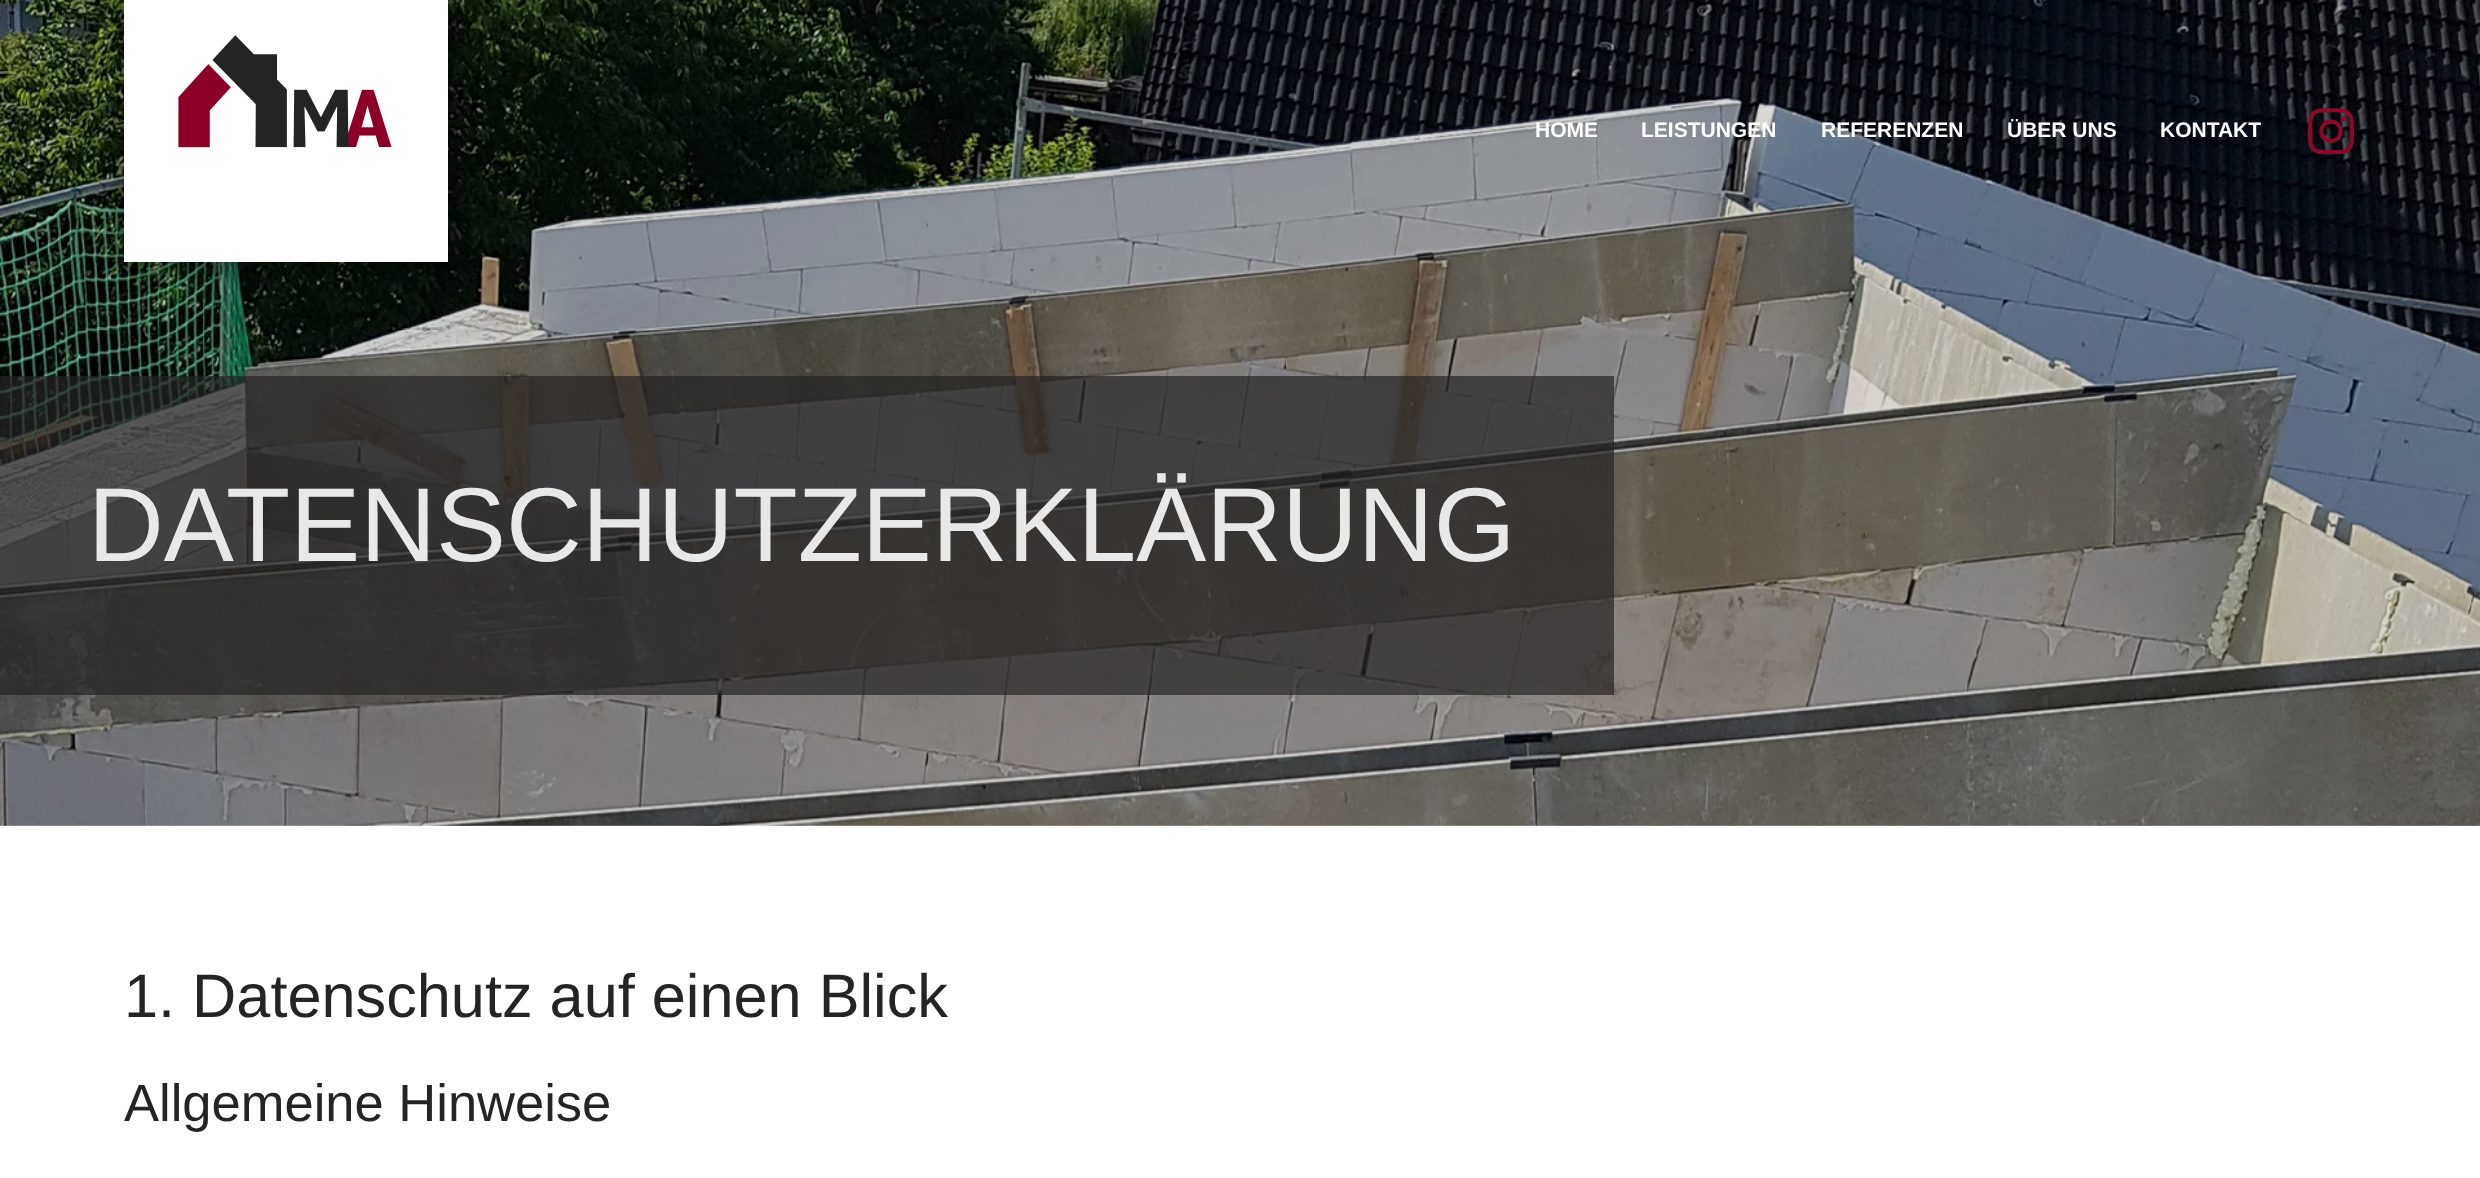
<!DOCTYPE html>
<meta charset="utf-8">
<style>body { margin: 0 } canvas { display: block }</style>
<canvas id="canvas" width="2480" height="1178"></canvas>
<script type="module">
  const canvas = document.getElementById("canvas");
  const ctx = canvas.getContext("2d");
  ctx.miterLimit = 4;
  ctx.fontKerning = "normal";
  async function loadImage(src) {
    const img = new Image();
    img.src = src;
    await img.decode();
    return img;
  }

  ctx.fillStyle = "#ffffff";
  ctx.fillRect(0, 0, 2480, 1178);
  ctx.drawImage(await loadImage("img3.png"), 0, 0, 2480, 826);
  ctx.fillStyle = "rgba(0, 0, 0, 0.35)";
  ctx.filter = "blur(9px)";
  ctx.beginPath();
  ctx.rect(117, -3, 340, 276);
  ctx.fill();
  ctx.filter = "none";
  ctx.drawImage(await loadImage("img1.png"), 124, 0, 324, 262);
  ctx.font = "bold 21px Liberation Sans";
  ctx.fillStyle = "#ffffff";
  ctx.fillText("HOME", 1535, 137);
  ctx.fillText("LEISTUNGEN", 1641, 137);
  ctx.fillText("REFERENZEN", 1821, 137);
  ctx.fillText("ÜBER UNS", 2007, 137);
  ctx.fillText("KONTAKT", 2160, 137);
  ctx.drawImage(await loadImage("img2.png"), 2308, 108, 46, 47);
  ctx.fillStyle = "rgba(37, 36, 36, 0.7)";
  ctx.fillRect(0, 376, 1614, 319);
  ctx.font = "105px Liberation Sans";
  ctx.fillStyle = "#e8e8e8";
  ctx.fillText("DATENSCHUTZERKLÄRUNG", 88, 561);
  ctx.font = "61.25px Liberation Sans";
  ctx.fillStyle = "#252424";
  ctx.fillText("1. Datenschutz auf einen Blick", 124, 1017);
  ctx.font = "52.5px Liberation Sans";
  ctx.fillText("Allgemeine Hinweise", 124, 1121);
</script>
